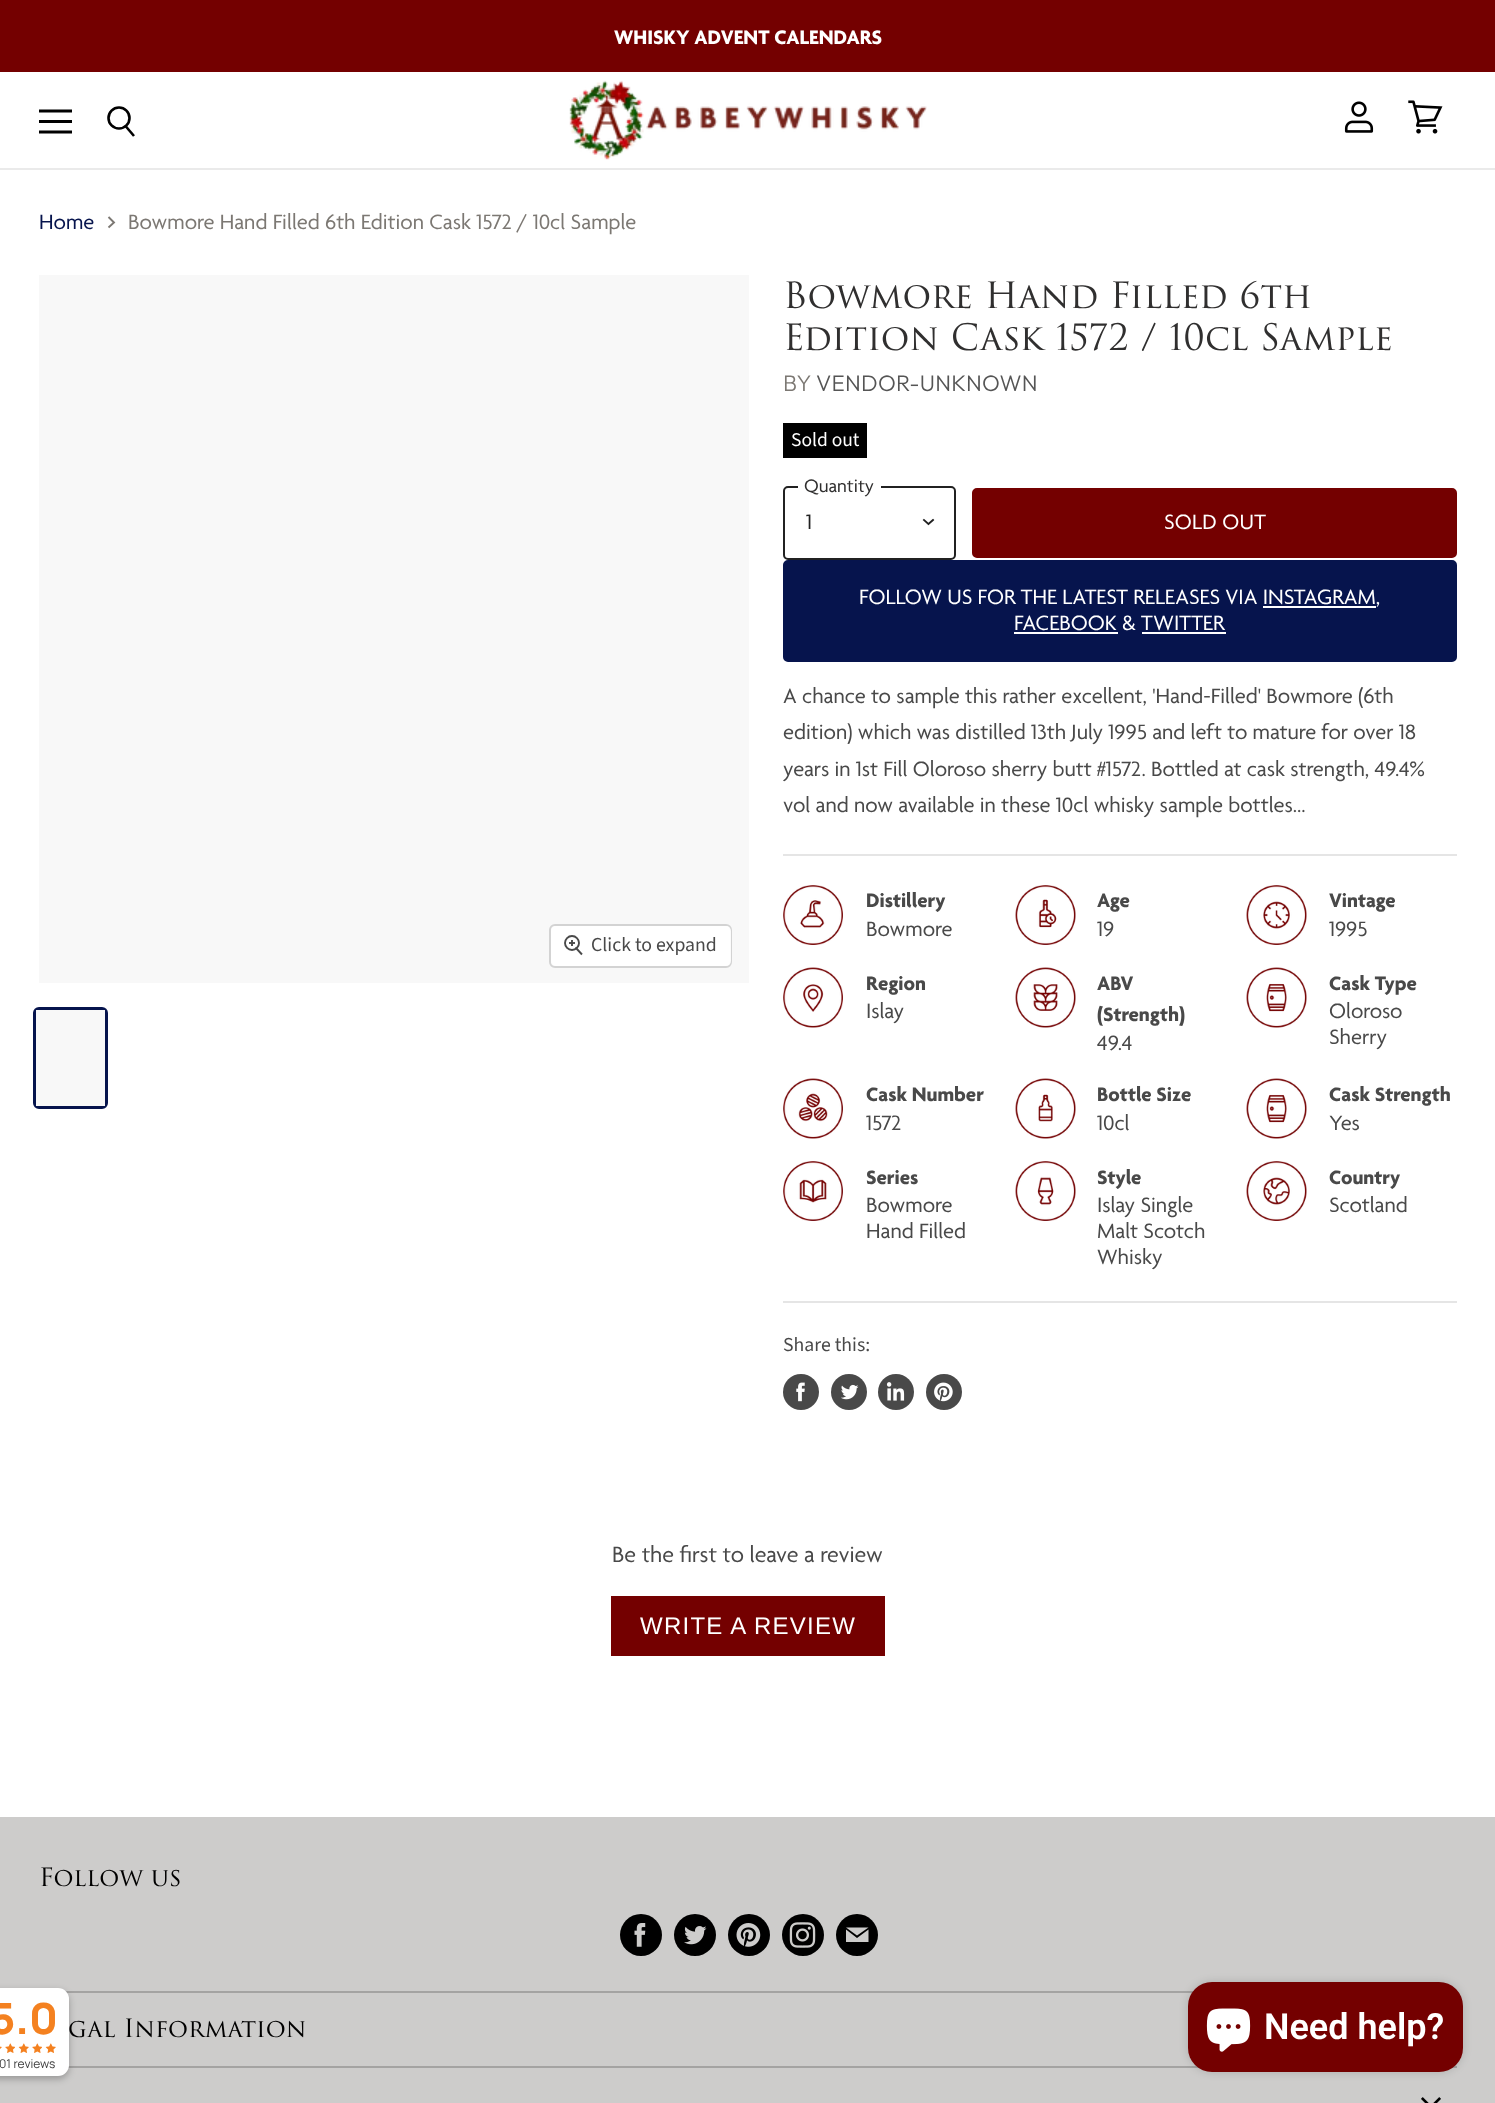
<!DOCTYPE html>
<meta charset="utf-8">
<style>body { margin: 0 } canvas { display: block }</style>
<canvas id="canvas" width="1495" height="2103"></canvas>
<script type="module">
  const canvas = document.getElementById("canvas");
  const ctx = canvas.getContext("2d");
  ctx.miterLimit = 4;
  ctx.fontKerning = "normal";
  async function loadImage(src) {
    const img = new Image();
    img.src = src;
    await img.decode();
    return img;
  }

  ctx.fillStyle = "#ffffff";
  ctx.fillRect(0, 0, 1495, 2103);
  ctx.fillStyle = "#740000";
  ctx.fillRect(0, 0, 1495, 72);
  ctx.font = "bold 21.1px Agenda";
  ctx.fillStyle = "#ffffff";
  ctx.fillText("WHISKY ADVENT CALENDARS", 614, 44);
  ctx.fillStyle = "#eaeaea";
  ctx.fillRect(0, 168, 1495, 2);
  ctx.beginPath();
  ctx.moveTo(70.5, 111);
  ctx.lineTo(40.5, 111);
  ctx.strokeStyle = "#000000";
  ctx.lineWidth = 3;
  ctx.lineCap = "square";
  ctx.lineJoin = "round";
  ctx.stroke();
  ctx.fillStyle = "#000000";
  ctx.fillRect(39, 120, 33, 3);
  ctx.beginPath();
  ctx.moveTo(70.5, 132);
  ctx.lineTo(40.5, 132);
  ctx.stroke();
  ctx.beginPath();
  ctx.moveTo(134, 136);
  ctx.lineTo(125.5, 126);
  ctx.lineWidth = 2.6;
  ctx.lineCap = "butt";
  ctx.lineJoin = "miter";
  ctx.stroke();
  ctx.beginPath();
  ctx.arc(119, 118, 10.5, 0, Math.PI * 2);
  ctx.stroke();
  ctx.drawImage(await loadImage("img1.png"), 569, 80, 358, 80);
  ctx.drawImage(await loadImage("img2.png"), 1344, 101, 30, 32);
  ctx.drawImage(await loadImage("img3.png"), 1408, 100, 35, 34);
  ctx.font = "22.5px Agenda";
  ctx.fillStyle = "#06144d";
  ctx.fillText("Home", 39, 229);
  ctx.beginPath();
  ctx.moveTo(108.5, 227.5);
  ctx.lineTo(114, 222.5);
  ctx.lineTo(108.5, 217);
  ctx.strokeStyle = "#7c7873";
  ctx.lineWidth = 1.9;
  ctx.stroke();
  ctx.fillStyle = "#7c7873";
  ctx.fillText("Bowmore Hand Filled 6th Edition Cask 1572 / 10cl Sample", 128, 229);
  ctx.fillStyle = "#f8f8f8";
  ctx.fillRect(39, 275, 710, 708);
  ctx.beginPath();
  ctx.roundRect(550, 925, 181, 42, 5);
  ctx.strokeStyle = "#d3d3d3";
  ctx.lineWidth = 2;
  ctx.stroke();
  ctx.fillStyle = "rgba(255, 255, 255, 0.9)";
  ctx.beginPath();
  ctx.roundRect(551, 926, 180, 40, 5);
  ctx.fill();
  ctx.beginPath();
  ctx.moveTo(575.5, 947.5);
  ctx.lineTo(582, 954.5);
  ctx.strokeStyle = "#494949";
  ctx.lineWidth = 1.9;
  ctx.stroke();
  ctx.beginPath();
  ctx.arc(572, 943, 7, 0, Math.PI * 2);
  ctx.stroke();
  ctx.fillStyle = "#525252";
  ctx.fillRect(571, 940, 2, 6);
  ctx.fillStyle = "rgba(73, 73, 73, 0.95)";
  ctx.fillRect(569, 942, 6, 2);
  ctx.font = "19.75px Source Sans Pro";
  ctx.fillStyle = "#494949";
  ctx.fillText("Click to expand", 591, 951);
  ctx.beginPath();
  ctx.roundRect(34.5, 1008.5, 72, 99, 4.5);
  ctx.strokeStyle = "#06144d";
  ctx.lineWidth = 3;
  ctx.stroke();
  ctx.fillStyle = "#f8f8f8";
  ctx.fillRect(36, 1010, 69, 96);
  ctx.font = "35.4px 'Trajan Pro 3'";
  ctx.fillStyle = "#302f2f";
  ctx.fillText("Bowmore Hand Filled 6th", 783, 308);
  ctx.fillText("Edition Cask 1572 / 10cl Sample", 783, 350);
  ctx.letterSpacing = "0.25px";
  ctx.font = "300 22.5px Outfit";
  ctx.fillStyle = "#7c7873";
  ctx.fillText("BY", 783, 391);
  ctx.fillStyle = "#555555";
  ctx.fillText("VENDOR-UNKNOWN", 816, 391);
  ctx.fillStyle = "#000000";
  ctx.fillRect(783, 423, 84, 35);
  ctx.letterSpacing = "0px";
  ctx.font = "19.5px Source Sans Pro";
  ctx.fillStyle = "#ffffff";
  ctx.fillText("Sold out", 791, 446);
  ctx.beginPath();
  ctx.roundRect(784, 487, 171, 72, 4);
  ctx.strokeStyle = "#212121";
  ctx.lineWidth = 2;
  ctx.stroke();
  ctx.fillRect(798, 486, 83, 2);
  ctx.font = "19.5px Agenda";
  ctx.fillStyle = "#302f2f";
  ctx.fillText("Quantity", 804, 492);
  ctx.font = "22.5px Agenda";
  ctx.fillStyle = "#212121";
  ctx.fillText("1", 806, 529);
  ctx.beginPath();
  ctx.moveTo(928.5, 524);
  ctx.lineTo(933, 520);
  ctx.moveTo(928.5, 524);
  ctx.lineTo(924, 520);
  ctx.lineWidth = 1.9;
  ctx.lineCap = "square";
  ctx.stroke();
  ctx.fillStyle = "#740000";
  ctx.beginPath();
  ctx.roundRect(973, 489, 483, 68, 4);
  ctx.fill();
  ctx.strokeStyle = "#740000";
  ctx.lineWidth = 2;
  ctx.stroke();
  ctx.letterSpacing = "0.25px";
  ctx.fillStyle = "#ffffff";
  ctx.fillText("SOLD OUT", 1164, 529);
  ctx.fillStyle = "#06144d";
  ctx.beginPath();
  ctx.roundRect(784.5, 561.5, 671, 99, 3.5);
  ctx.fill();
  ctx.strokeStyle = "#06144d";
  ctx.lineWidth = 3;
  ctx.stroke();
  ctx.letterSpacing = "0px";
  ctx.fillStyle = "#ffffff";
  ctx.fillText("FOLLOW US FOR THE LATEST RELEASES VIA INSTAGRAM,", 859, 604);
  ctx.fillRect(1263, 606, 113, 2);
  ctx.fillText("FACEBOOK & TWITTER", 1014, 630);
  ctx.fillRect(1014, 632, 104, 2);
  ctx.fillRect(1142, 632, 84, 2);
  ctx.fillStyle = "#494949";
  ctx.fillText("A chance to sample this rather excellent, 'Hand-Filled' Bowmore (6th", 783, 703);
  ctx.fillText("edition) which was distilled 13th July 1995 and left to mature for over 18", 783, 739);
  ctx.fillText("years in 1st Fill Oloroso sherry butt #1572. Bottled at cask strength, 49.4%", 783, 776);
  ctx.fillText("vol and now available in these 10cl whisky sample bottles...", 783, 812);
  ctx.fillStyle = "#e5e5e5";
  ctx.fillRect(783, 854, 674, 2);
  ctx.drawImage(await loadImage("img4.png"), 783, 885, 60, 60);
  ctx.font = "bold 21px Agenda";
  ctx.fillStyle = "#494949";
  ctx.fillText("Distillery", 866, 907);
  ctx.font = "22.5px Agenda";
  ctx.fillText("Bowmore", 866, 936);
  ctx.drawImage(await loadImage("img5.png"), 1015, 885, 61, 60);
  ctx.font = "bold 21px Agenda";
  ctx.fillText("Age", 1097, 907);
  ctx.font = "22.5px Agenda";
  ctx.fillText("19", 1097, 936);
  ctx.drawImage(await loadImage("img6.png"), 1246, 885, 61, 60);
  ctx.font = "bold 21px Agenda";
  ctx.fillText("Vintage", 1329, 907);
  ctx.font = "22.5px Agenda";
  ctx.fillText("1995", 1329, 936);
  ctx.drawImage(await loadImage("img7.png"), 783, 967, 60, 61);
  ctx.font = "bold 21px Agenda";
  ctx.fillText("Region", 866, 990);
  ctx.font = "22.5px Agenda";
  ctx.fillText("Islay", 866, 1018);
  ctx.drawImage(await loadImage("img8.png"), 1015, 967, 61, 61);
  ctx.font = "bold 21px Agenda";
  ctx.fillText("ABV", 1097, 990);
  ctx.fillText("(Strength)", 1097, 1021);
  ctx.font = "22.5px Agenda";
  ctx.fillText("49.4", 1097, 1050);
  ctx.drawImage(await loadImage("img9.png"), 1246, 967, 61, 61);
  ctx.font = "bold 21px Agenda";
  ctx.fillText("Cask Type", 1329, 990);
  ctx.font = "22.5px Agenda";
  ctx.fillText("Oloroso", 1329, 1018);
  ctx.fillText("Sherry", 1329, 1044);
  ctx.drawImage(await loadImage("img10.png"), 783, 1078, 60, 61);
  ctx.font = "bold 21px Agenda";
  ctx.fillText("Cask Number", 866, 1101);
  ctx.font = "22.5px Agenda";
  ctx.fillText("1572", 866, 1130);
  ctx.drawImage(await loadImage("img11.png"), 1015, 1078, 61, 61);
  ctx.font = "bold 21px Agenda";
  ctx.fillText("Bottle Size", 1097, 1101);
  ctx.font = "22.5px Agenda";
  ctx.fillText("10cl", 1097, 1130);
  ctx.drawImage(await loadImage("img9.png"), 1246, 1078, 61, 61);
  ctx.font = "bold 21px Agenda";
  ctx.fillText("Cask Strength", 1329, 1101);
  ctx.font = "22.5px Agenda";
  ctx.fillText("Yes", 1329, 1130);
  ctx.drawImage(await loadImage("img12.png"), 783, 1161, 60, 60);
  ctx.font = "bold 21px Agenda";
  ctx.fillText("Series", 866, 1184);
  ctx.font = "22.5px Agenda";
  ctx.fillText("Bowmore", 866, 1212);
  ctx.fillText("Hand Filled", 866, 1238);
  ctx.drawImage(await loadImage("img13.png"), 1015, 1161, 61, 60);
  ctx.font = "bold 21px Agenda";
  ctx.fillText("Style", 1097, 1184);
  ctx.font = "22.5px Agenda";
  ctx.fillText("Islay Single", 1097, 1212);
  ctx.fillText("Malt Scotch", 1097, 1238);
  ctx.fillText("Whisky", 1097, 1264);
  ctx.drawImage(await loadImage("img14.png"), 1246, 1161, 61, 60);
  ctx.font = "bold 21px Agenda";
  ctx.fillText("Country", 1329, 1184);
  ctx.font = "22.5px Agenda";
  ctx.fillText("Scotland", 1329, 1212);
  ctx.fillStyle = "#e5e5e5";
  ctx.fillRect(783, 1301, 674, 2);
  ctx.font = "19.75px Source Sans Pro";
  ctx.fillStyle = "#494949";
  ctx.fillText("Share this:", 783, 1351);
  ctx.beginPath();
  ctx.arc(801, 1392, 18, 0, Math.PI * 2);
  ctx.fill();
  ctx.drawImage(await loadImage("img15.png"), 796, 1382, 9, 20);
  ctx.beginPath();
  ctx.arc(849, 1392, 18, 0, Math.PI * 2);
  ctx.fill();
  ctx.drawImage(await loadImage("img16.png"), 841, 1384, 18, 16);
  ctx.beginPath();
  ctx.arc(896, 1392, 18, 0, Math.PI * 2);
  ctx.fill();
  ctx.drawImage(await loadImage("img17.png"), 886, 1382, 19, 19);
  ctx.beginPath();
  ctx.arc(944, 1392, 18, 0, Math.PI * 2);
  ctx.fill();
  ctx.drawImage(await loadImage("img18.png"), 934, 1382, 19, 20);
  ctx.font = "24px Agenda";
  ctx.fillText("Be the first to leave a review", 612, 1562);
  ctx.fillStyle = "#740000";
  ctx.fillRect(611, 1596, 274, 60);
  ctx.letterSpacing = "1.25px";
  ctx.font = "24px Liberation Sans";
  ctx.fillStyle = "#ffffff";
  ctx.fillText("WRITE A REVIEW", 640, 1634);
  ctx.fillStyle = "#cdcccb";
  ctx.fillRect(0, 1817, 1495, 286);
  ctx.fillStyle = "#a4a3a2";
  ctx.fillRect(65, 1991, 1129, 2);
  ctx.fillRect(68, 2066, 1389, 2);
  ctx.fillStyle = "rgba(0, 0, 0, 0.26)";
  ctx.filter = "blur(3.5px)";
  ctx.beginPath();
  ctx.roundRect(-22, 1991, 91, 88, 11);
  ctx.fill();
  ctx.filter = "none";
  ctx.letterSpacing = "0px";
  ctx.font = "24.75px 'Trajan Pro 3'";
  ctx.fillStyle = "#000000";
  ctx.fillText("gal Information", 68, 2037);
  ctx.fillStyle = "#ffffff";
  ctx.beginPath();
  ctx.roundRect(-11, 1988, 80, 88, 11);
  ctx.fill();
  ctx.font = "800 43px Manrope";
  ctx.fillStyle = "#f48120";
  ctx.fillText("5.0", -10, 2034);
  ctx.drawImage(await loadImage("img19.png"), 0, 2046, 2, 3);
  ctx.drawImage(await loadImage("img20.png"), 5, 2043, 10, 10);
  ctx.drawImage(await loadImage("img21.png"), 18, 2043, 11, 10);
  ctx.drawImage(await loadImage("img20.png"), 32, 2043, 10, 10);
  ctx.drawImage(await loadImage("img21.png"), 45, 2043, 11, 10);
  ctx.font = "12px Manrope";
  ctx.fillStyle = "#404040";
  ctx.fillText("01 reviews", -1, 2068);
  ctx.font = "24.75px 'Trajan Pro 3'";
  ctx.fillStyle = "#000000";
  ctx.fillText("Follow us", 39, 1886);
  ctx.beginPath();
  ctx.arc(641, 1935, 21, 0, Math.PI * 2);
  ctx.fill();
  ctx.drawImage(await loadImage("img22.png"), 634, 1923, 12, 24);
  ctx.beginPath();
  ctx.arc(695, 1935, 21, 0, Math.PI * 2);
  ctx.fill();
  ctx.drawImage(await loadImage("img23.png"), 684, 1926, 23, 19);
  ctx.beginPath();
  ctx.arc(749, 1935, 21, 0, Math.PI * 2);
  ctx.fill();
  ctx.drawImage(await loadImage("img24.png"), 736, 1923, 25, 24);
  ctx.beginPath();
  ctx.arc(803, 1935, 21, 0, Math.PI * 2);
  ctx.fill();
  ctx.drawImage(await loadImage("img25.png"), 789, 1922, 27, 26);
  ctx.beginPath();
  ctx.arc(857, 1935, 21, 0, Math.PI * 2);
  ctx.fill();
  ctx.fillStyle = "#cdcccb";
  ctx.beginPath();
  ctx.moveTo(868.5, 1927.5);
  ctx.lineTo(846, 1927.5);
  ctx.lineTo(857, 1935.5);
  ctx.closePath();
  ctx.moveTo(857, 1938);
  ctx.lineTo(846, 1929.5);
  ctx.lineTo(846, 1942);
  ctx.lineTo(868.5, 1942);
  ctx.lineTo(868.5, 1929.5);
  ctx.closePath();
  ctx.fill("evenodd");
  ctx.drawImage(await loadImage("img26.png"), 1421, 2097, 20, 6);
  ctx.fillStyle = "rgba(0, 0, 0, 0.15)";
  ctx.filter = "blur(4px)";
  ctx.beginPath();
  ctx.roundRect(1188, 1982, 275, 90, 24);
  ctx.fill();
  ctx.filter = "none";
  ctx.fillStyle = "#740000";
  ctx.beginPath();
  ctx.roundRect(1188, 1982, 275, 90, 24);
  ctx.fill();
  ctx.drawImage(await loadImage("img27.png"), 1206, 2008, 45, 44);
  ctx.font = "600 36px Roboto";
  ctx.fillStyle = "#ffffff";
  ctx.fillText("Need help?", 1264, 2039);
</script>
